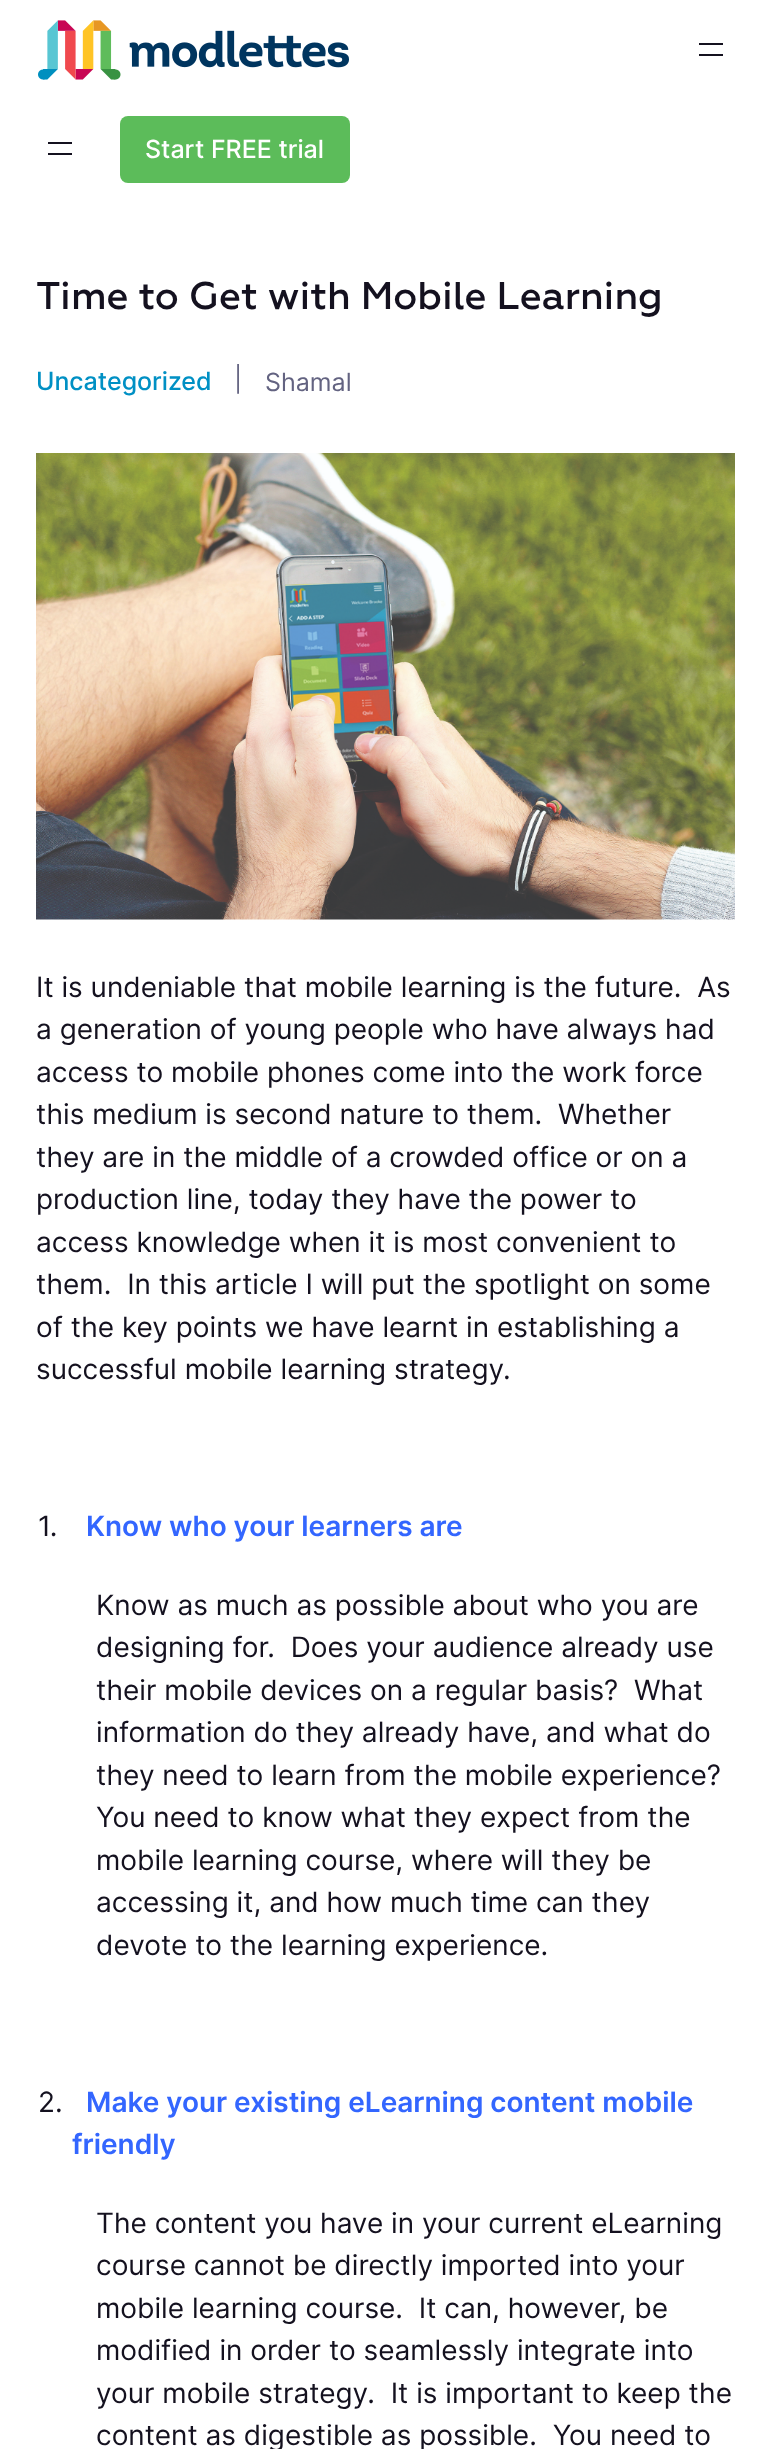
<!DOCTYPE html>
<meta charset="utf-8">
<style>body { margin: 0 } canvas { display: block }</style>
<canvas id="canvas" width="771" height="2449"></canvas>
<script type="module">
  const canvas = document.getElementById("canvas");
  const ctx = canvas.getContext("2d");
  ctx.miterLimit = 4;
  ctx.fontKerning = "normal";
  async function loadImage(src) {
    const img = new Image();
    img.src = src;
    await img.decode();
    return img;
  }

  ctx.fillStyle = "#ffffff";
  ctx.fillRect(0, 0, 771, 2449);
  ctx.drawImage(await loadImage("img1.png"), 38, 20, 311, 60);
  ctx.fillStyle = "#14111f";
  ctx.fillRect(699, 43, 24, 2);
  ctx.fillRect(699, 54, 24, 2);
  ctx.fillRect(48, 142, 24, 2);
  ctx.fillRect(48, 153, 24, 2);
  ctx.fillStyle = "#5cbc5a";
  ctx.beginPath();
  ctx.roundRect(120, 116, 230, 67, 8);
  ctx.fill();
  ctx.font = "500 25px Inter";
  ctx.fillStyle = "#ffffff";
  ctx.fillText("Start FREE trial", 145, 158);
  ctx.font = "500 38.5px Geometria";
  ctx.fillStyle = "#14111f";
  ctx.fillText("Time to Get with Mobile Learning", 36, 309);
  ctx.font = "500 25px Inter";
  ctx.fillStyle = "#0090c4";
  ctx.fillText("Uncategorized", 36, 390);
  ctx.font = "25px Inter";
  ctx.fillStyle = "#636381";
  ctx.fillText("|", 234, 388);
  ctx.fillText("Shamal", 265, 391);
  ctx.drawImage(await loadImage("img2.png"), 36, 453, 699, 467);
  ctx.font = "28px Inter";
  ctx.fillStyle = "#14111f";
  ctx.fillText("It is undeniable that mobile learning is the future.  As", 36, 997);
  ctx.fillText("a generation of young people who have always had", 36, 1039);
  ctx.fillText("access to mobile phones come into the work force", 36, 1082);
  ctx.fillText("this medium is second nature to them.  Whether", 36, 1124);
  ctx.fillText("they are in the middle of a crowded office or on a", 36, 1167);
  ctx.fillText("production line, today they have the power to", 36, 1209);
  ctx.fillText("access knowledge when it is most convenient to", 36, 1252);
  ctx.fillText("them.  In this article I will put the spotlight on some", 36, 1294);
  ctx.fillText("of the key points we have learnt in establishing a", 36, 1337);
  ctx.fillText("successful mobile learning strategy.", 36, 1379);
  ctx.fillText("1.", 38, 1536);
  ctx.font = "600 28px Inter";
  ctx.fillStyle = "#3366ff";
  ctx.fillText("Know who your learners are", 86, 1536);
  ctx.font = "28px Inter";
  ctx.fillStyle = "#14111f";
  ctx.fillText("Know as much as possible about who you are", 96, 1615);
  ctx.fillText("designing for.  Does your audience already use", 96, 1657);
  ctx.fillText("their mobile devices on a regular basis?  What", 96, 1700);
  ctx.fillText("information do they already have, and what do", 96, 1742);
  ctx.fillText("they need to learn from the mobile experience?", 96, 1785);
  ctx.fillText("You need to know what they expect from the", 96, 1827);
  ctx.fillText("mobile learning course, where will they be", 96, 1870);
  ctx.fillText("accessing it, and how much time can they", 96, 1912);
  ctx.fillText("devote to the learning experience.", 96, 1955);
  ctx.fillText("2.", 38, 2112);
  ctx.font = "600 28px Inter";
  ctx.fillStyle = "#3366ff";
  ctx.fillText("Make your existing eLearning content mobile", 86, 2112);
  ctx.fillText("friendly", 72, 2154);
  ctx.font = "28px Inter";
  ctx.fillStyle = "#14111f";
  ctx.fillText("The content you have in your current eLearning", 96, 2233);
  ctx.fillText("course cannot be directly imported into your", 96, 2275);
  ctx.fillText("mobile learning course.  It can, however, be", 96, 2318);
  ctx.fillText("modified in order to seamlessly integrate into", 96, 2360);
  ctx.fillText("your mobile strategy.  It is important to keep the", 96, 2403);
  ctx.fillText("content as digestible as possible.  You need to", 96, 2445);
</script>
